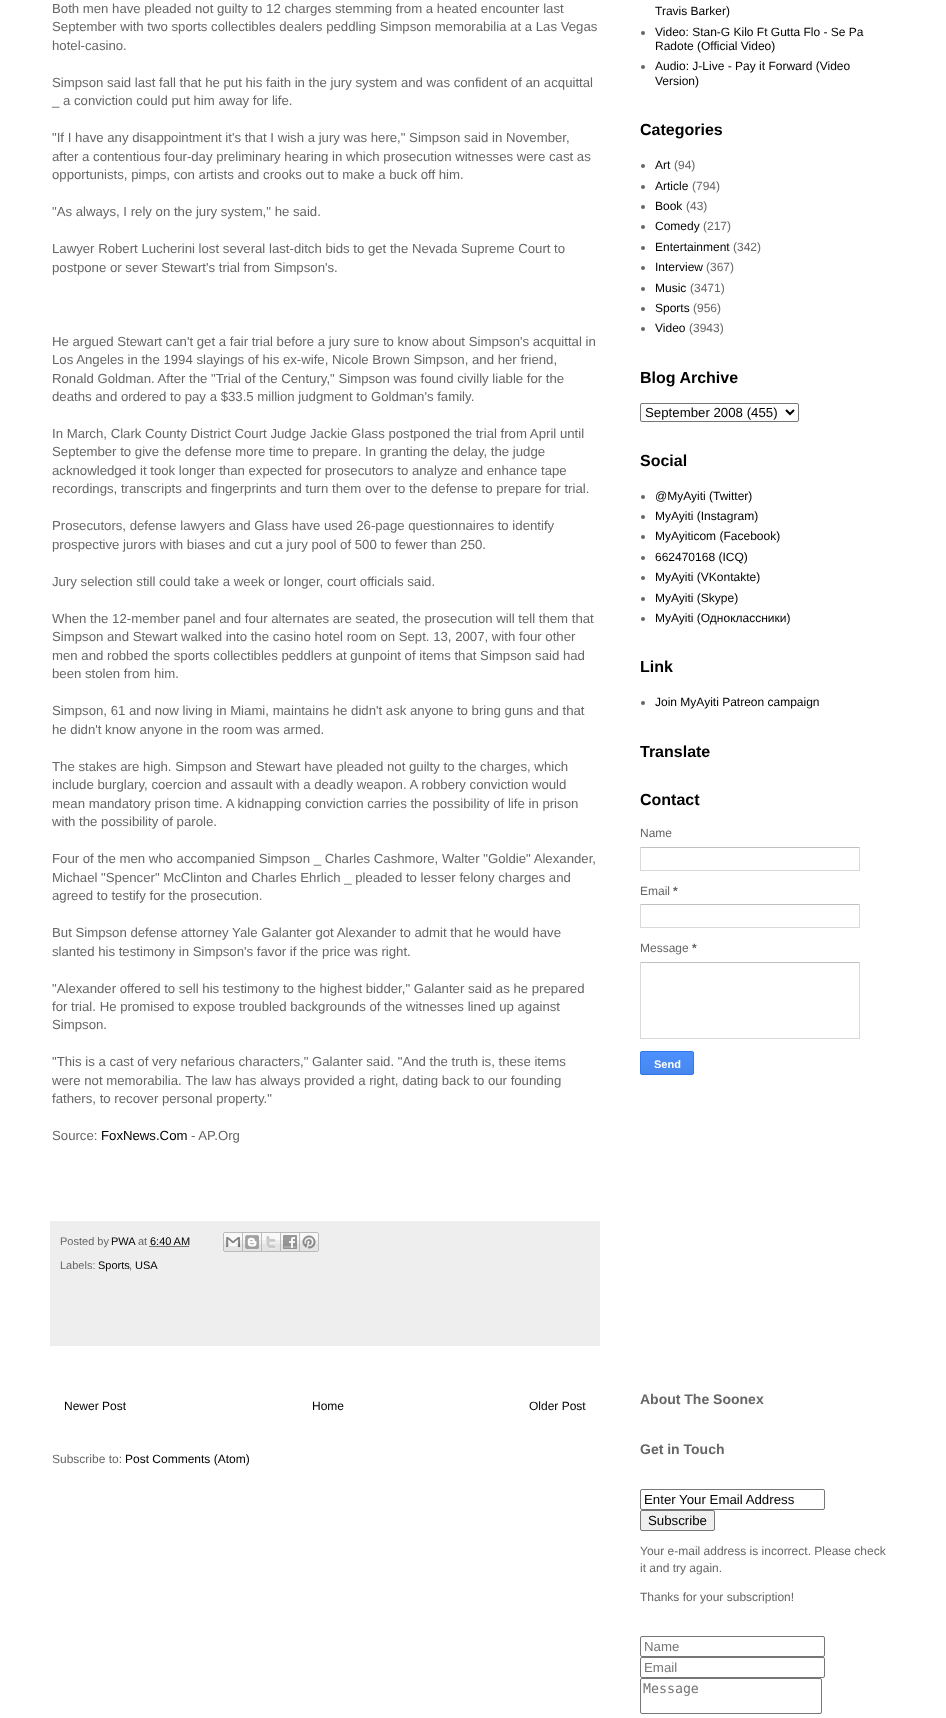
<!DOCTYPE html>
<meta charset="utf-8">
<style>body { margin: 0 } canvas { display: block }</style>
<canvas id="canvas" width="946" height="1718"></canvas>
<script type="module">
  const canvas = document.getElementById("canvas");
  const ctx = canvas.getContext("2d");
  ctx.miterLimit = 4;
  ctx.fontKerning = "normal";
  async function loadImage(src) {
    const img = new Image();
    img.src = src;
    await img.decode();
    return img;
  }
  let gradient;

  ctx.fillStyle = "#ffffff";
  ctx.fillRect(0, 0, 946, 1718);
  ctx.font = "13.2px Liberation Sans";
  ctx.fillStyle = "#666666";
  ctx.fillText("Both men have pleaded not guilty to 12 charges stemming from a heated encounter last", 52, 13);
  ctx.fillText("September with two sports collectibles dealers peddling Simpson memorabilia at a Las Vegas", 52, 31);
  ctx.fillText("hotel-casino.", 52, 50);
  ctx.fillText("Simpson said last fall that he put his faith in the jury system and was confident of an acquittal", 52, 87);
  ctx.fillText("_ a conviction could put him away for life.", 52, 105);
  ctx.fillText("\"If I have any disappointment it's that I wish a jury was here,\" Simpson said in November,", 52, 142);
  ctx.fillText("after a contentious four-day preliminary hearing in which prosecution witnesses were cast as", 52, 161);
  ctx.fillText("opportunists, pimps, con artists and crooks out to make a buck off him.", 52, 179);
  ctx.fillText("\"As always, I rely on the jury system,\" he said.", 52, 216);
  ctx.fillText("Lawyer Robert Lucherini lost several last-ditch bids to get the Nevada Supreme Court to", 52, 253);
  ctx.fillText("postpone or sever Stewart's trial from Simpson's.", 52, 272);
  ctx.fillText("He argued Stewart can't get a fair trial before a jury sure to know about Simpson's acquittal in", 52, 346);
  ctx.fillText("Los Angeles in the 1994 slayings of his ex-wife, Nicole Brown Simpson, and her friend,", 52, 364);
  ctx.fillText("Ronald Goldman. After the \"Trial of the Century,\" Simpson was found civilly liable for the", 52, 383);
  ctx.fillText("deaths and ordered to pay a $33.5 million judgment to Goldman's family.", 52, 401);
  ctx.fillText("In March, Clark County District Court Judge Jackie Glass postponed the trial from April until", 52, 438);
  ctx.fillText("September to give the defense more time to prepare. In granting the delay, the judge", 52, 456);
  ctx.fillText("acknowledged it took longer than expected for prosecutors to analyze and enhance tape", 52, 475);
  ctx.fillText("recordings, transcripts and fingerprints and turn them over to the defense to prepare for trial.", 52, 493);
  ctx.fillText("Prosecutors, defense lawyers and Glass have used 26-page questionnaires to identify", 52, 530);
  ctx.fillText("prospective jurors with biases and cut a jury pool of 500 to fewer than 250.", 52, 549);
  ctx.fillText("Jury selection still could take a week or longer, court officials said.", 52, 586);
  ctx.fillText("When the 12-member panel and four alternates are seated, the prosecution will tell them that", 52, 623);
  ctx.fillText("Simpson and Stewart walked into the casino hotel room on Sept. 13, 2007, with four other", 52, 641);
  ctx.fillText("men and robbed the sports collectibles peddlers at gunpoint of items that Simpson said had", 52, 660);
  ctx.fillText("been stolen from him.", 52, 678);
  ctx.fillText("Simpson, 61 and now living in Miami, maintains he didn't ask anyone to bring guns and that", 52, 715);
  ctx.fillText("he didn't know anyone in the room was armed.", 52, 734);
  ctx.fillText("The stakes are high. Simpson and Stewart have pleaded not guilty to the charges, which", 52, 771);
  ctx.fillText("include burglary, coercion and assault with a deadly weapon. A robbery conviction would", 52, 789);
  ctx.fillText("mean mandatory prison time. A kidnapping conviction carries the possibility of life in prison", 52, 808);
  ctx.fillText("with the possibility of parole.", 52, 826);
  ctx.fillText("Four of the men who accompanied Simpson _ Charles Cashmore, Walter \"Goldie\" Alexander,", 52, 863);
  ctx.fillText("Michael \"Spencer\" McClinton and Charles Ehrlich _ pleaded to lesser felony charges and", 52, 882);
  ctx.fillText("agreed to testify for the prosecution.", 52, 900);
  ctx.fillText("But Simpson defense attorney Yale Galanter got Alexander to admit that he would have", 52, 937);
  ctx.fillText("slanted his testimony in Simpson's favor if the price was right.", 52, 956);
  ctx.fillText("\"Alexander offered to sell his testimony to the highest bidder,\" Galanter said as he prepared", 52, 993);
  ctx.fillText("for trial. He promised to expose troubled backgrounds of the witnesses lined up against", 52, 1011);
  ctx.fillText("Simpson.", 52, 1029);
  ctx.fillText("\"This is a cast of very nefarious characters,\" Galanter said. \"And the truth is, these items", 52, 1066);
  ctx.fillText("were not memorabilia. The law has always provided a right, dating back to our founding", 52, 1085);
  ctx.fillText("fathers, to recover personal property.\"", 52, 1103);
  ctx.fillText("Source:", 52, 1140);
  ctx.fillStyle = "#000000";
  ctx.fillText("FoxNews.Com", 101, 1140);
  ctx.fillStyle = "#666666";
  ctx.fillText("- AP.Org", 191, 1140);
  ctx.fillStyle = "#eeeeee";
  ctx.fillRect(50, 1221, 550, 125);
  ctx.font = "11px Liberation Sans";
  ctx.fillStyle = "#666666";
  ctx.fillText("Posted by", 60, 1245);
  ctx.fillStyle = "#000000";
  ctx.fillText("PWA", 111, 1245);
  ctx.fillStyle = "#666666";
  ctx.fillText("at", 138, 1245);
  ctx.fillStyle = "#000000";
  ctx.fillText("6:40 AM", 150, 1245);
  ctx.beginPath();
  ctx.moveTo(149.5, 1246.5);
  ctx.lineTo(189, 1246.5);
  ctx.strokeStyle = "#000000";
  ctx.setLineDash([1, 1]);
  ctx.stroke();
  ctx.drawImage(await loadImage("img1.png"), 223, 1232, 20, 20);
  ctx.drawImage(await loadImage("img2.png"), 243, 1232, 19, 20);
  ctx.drawImage(await loadImage("img3.png"), 262, 1232, 19, 20);
  ctx.drawImage(await loadImage("img4.png"), 281, 1232, 19, 20);
  ctx.drawImage(await loadImage("img5.png"), 300, 1232, 19, 20);
  ctx.fillStyle = "#666666";
  ctx.fillText("Labels:", 60, 1269);
  ctx.fillStyle = "#000000";
  ctx.fillText("Sports", 98, 1269);
  ctx.fillStyle = "#666666";
  ctx.fillText(",", 129, 1269);
  ctx.fillStyle = "#000000";
  ctx.fillText("USA", 135, 1269);
  ctx.font = "12px Liberation Sans";
  ctx.fillText("Newer Post", 64, 1410);
  ctx.fillText("Home", 312, 1410);
  ctx.fillText("Older Post", 529, 1410);
  ctx.fillStyle = "#666666";
  ctx.fillText("Subscribe to:", 52, 1463);
  ctx.fillStyle = "#000000";
  ctx.fillText("Post Comments (Atom)", 125, 1463);
  ctx.fillText("Travis Barker)", 655, 15);
  ctx.fillStyle = "#666666";
  ctx.beginPath();
  ctx.arc(643, 33, 2, 0, Math.PI * 2);
  ctx.fill();
  ctx.fillStyle = "#000000";
  ctx.fillText("Video: Stan-G Kilo Ft Gutta Flo - Se Pa", 655, 36);
  ctx.fillText("Radote (Official Video)", 655, 50);
  ctx.fillStyle = "#666666";
  ctx.beginPath();
  ctx.arc(643, 67, 2, 0, Math.PI * 2);
  ctx.fill();
  ctx.fillStyle = "#000000";
  ctx.fillText("Audio: J-Live - Pay it Forward (Video", 655, 70);
  ctx.fillText("Version)", 655, 85);
  ctx.font = "bold 16px Liberation Sans";
  ctx.fillText("Categories", 640, 135);
  ctx.fillStyle = "#666666";
  ctx.beginPath();
  ctx.arc(643, 166, 2, 0, Math.PI * 2);
  ctx.fill();
  ctx.font = "12px Liberation Sans";
  ctx.fillStyle = "#000000";
  ctx.fillText("Art", 655, 169);
  ctx.fillStyle = "#666666";
  ctx.fillText("(94)", 674, 169);
  ctx.beginPath();
  ctx.arc(643, 187, 2, 0, Math.PI * 2);
  ctx.fill();
  ctx.fillStyle = "#000000";
  ctx.fillText("Article", 655, 190);
  ctx.fillStyle = "#666666";
  ctx.fillText("(794)", 692, 190);
  ctx.beginPath();
  ctx.arc(643, 207, 2, 0, Math.PI * 2);
  ctx.fill();
  ctx.fillStyle = "#000000";
  ctx.fillText("Book", 655, 210);
  ctx.fillStyle = "#666666";
  ctx.fillText("(43)", 686, 210);
  ctx.beginPath();
  ctx.arc(643, 227, 2, 0, Math.PI * 2);
  ctx.fill();
  ctx.fillStyle = "#000000";
  ctx.fillText("Comedy", 655, 230);
  ctx.fillStyle = "#666666";
  ctx.fillText("(217)", 703, 230);
  ctx.beginPath();
  ctx.arc(643, 248, 2, 0, Math.PI * 2);
  ctx.fill();
  ctx.fillStyle = "#000000";
  ctx.fillText("Entertainment", 655, 251);
  ctx.fillStyle = "#666666";
  ctx.fillText("(342)", 733, 251);
  ctx.beginPath();
  ctx.arc(643, 268, 2, 0, Math.PI * 2);
  ctx.fill();
  ctx.fillStyle = "#000000";
  ctx.fillText("Interview", 655, 271);
  ctx.fillStyle = "#666666";
  ctx.fillText("(367)", 706, 271);
  ctx.beginPath();
  ctx.arc(643, 289, 2, 0, Math.PI * 2);
  ctx.fill();
  ctx.fillStyle = "#000000";
  ctx.fillText("Music", 655, 292);
  ctx.fillStyle = "#666666";
  ctx.fillText("(3471)", 690, 292);
  ctx.beginPath();
  ctx.arc(643, 309, 2, 0, Math.PI * 2);
  ctx.fill();
  ctx.fillStyle = "#000000";
  ctx.fillText("Sports", 655, 312);
  ctx.fillStyle = "#666666";
  ctx.fillText("(956)", 693, 312);
  ctx.beginPath();
  ctx.arc(643, 329, 2, 0, Math.PI * 2);
  ctx.fill();
  ctx.fillStyle = "#000000";
  ctx.fillText("Video", 655, 332);
  ctx.fillStyle = "#666666";
  ctx.fillText("(3943)", 689, 332);
  ctx.font = "bold 16px Liberation Sans";
  ctx.fillStyle = "#000000";
  ctx.fillText("Blog Archive", 640, 383);
  ctx.beginPath();
  ctx.roundRect(640.5, 403.5, 158, 18, 1.5);
  ctx.strokeStyle = "#767676";
  ctx.setLineDash([]);
  ctx.stroke();
  ctx.beginPath();
  ctx.moveTo(786, 410);
  ctx.lineTo(790, 414);
  ctx.lineTo(794, 410);
  ctx.strokeStyle = "#000000";
  ctx.lineWidth = 2;
  ctx.stroke();
  ctx.font = "13.25px Liberation Sans";
  ctx.fillText("September 2008 (455)", 645, 417);
  ctx.font = "bold 16px Liberation Sans";
  ctx.fillText("Social", 640, 466);
  ctx.fillStyle = "#666666";
  ctx.beginPath();
  ctx.arc(643, 497, 2, 0, Math.PI * 2);
  ctx.fill();
  ctx.font = "12px Liberation Sans";
  ctx.fillStyle = "#000000";
  ctx.fillText("@MyAyiti (Twitter)", 655, 500);
  ctx.fillStyle = "#666666";
  ctx.beginPath();
  ctx.arc(643, 517, 2, 0, Math.PI * 2);
  ctx.fill();
  ctx.fillStyle = "#000000";
  ctx.fillText("MyAyiti (Instagram)", 655, 520);
  ctx.fillStyle = "#666666";
  ctx.beginPath();
  ctx.arc(643, 537, 2, 0, Math.PI * 2);
  ctx.fill();
  ctx.fillStyle = "#000000";
  ctx.fillText("MyAyiticom (Facebook)", 655, 540);
  ctx.fillStyle = "#666666";
  ctx.beginPath();
  ctx.arc(643, 558, 2, 0, Math.PI * 2);
  ctx.fill();
  ctx.fillStyle = "#000000";
  ctx.fillText("662470168 (ICQ)", 655, 561);
  ctx.fillStyle = "#666666";
  ctx.beginPath();
  ctx.arc(643, 578, 2, 0, Math.PI * 2);
  ctx.fill();
  ctx.fillStyle = "#000000";
  ctx.fillText("MyAyiti (VKontakte)", 655, 581);
  ctx.fillStyle = "#666666";
  ctx.beginPath();
  ctx.arc(643, 599, 2, 0, Math.PI * 2);
  ctx.fill();
  ctx.fillStyle = "#000000";
  ctx.fillText("MyAyiti (Skype)", 655, 602);
  ctx.fillStyle = "#666666";
  ctx.beginPath();
  ctx.arc(643, 619, 2, 0, Math.PI * 2);
  ctx.fill();
  ctx.fillStyle = "#000000";
  ctx.fillText("MyAyiti (Одноклассники)", 655, 622);
  ctx.font = "bold 16px Liberation Sans";
  ctx.fillText("Link", 640, 672);
  ctx.fillStyle = "#666666";
  ctx.beginPath();
  ctx.arc(643, 703, 2, 0, Math.PI * 2);
  ctx.fill();
  ctx.font = "12px Liberation Sans";
  ctx.fillStyle = "#000000";
  ctx.fillText("Join MyAyiti Patreon campaign", 655, 706);
  ctx.font = "bold 16px Liberation Sans";
  ctx.fillText("Translate", 640, 757);
  ctx.fillText("Contact", 640, 805);
  ctx.font = "12px Liberation Sans";
  ctx.fillStyle = "#666666";
  ctx.fillText("Name", 640, 837);
  ctx.fillStyle = "#c0c0c0";
  ctx.fillRect(640, 847, 220, 1);
  ctx.fillStyle = "#d9d9d9";
  ctx.fillRect(859, 847, 1, 24);
  ctx.fillRect(640, 870, 220, 1);
  ctx.fillRect(640, 847, 1, 24);
  ctx.fillStyle = "#666666";
  ctx.fillText("Email", 640, 895);
  ctx.font = "bold 12px Liberation Sans";
  ctx.fillText("*", 673, 895);
  ctx.fillStyle = "#c0c0c0";
  ctx.fillRect(640, 904, 220, 1);
  ctx.fillStyle = "#d9d9d9";
  ctx.fillRect(859, 904, 1, 24);
  ctx.fillRect(640, 927, 220, 1);
  ctx.fillRect(640, 904, 1, 24);
  ctx.font = "12px Liberation Sans";
  ctx.fillStyle = "#666666";
  ctx.fillText("Message", 640, 952);
  ctx.font = "bold 12px Liberation Sans";
  ctx.fillText("*", 692, 952);
  ctx.fillStyle = "#c0c0c0";
  ctx.fillRect(640, 962, 220, 1);
  ctx.fillStyle = "#d9d9d9";
  ctx.fillRect(859, 962, 1, 77);
  ctx.fillRect(640, 1038, 220, 1);
  ctx.fillRect(640, 962, 1, 77);
  ctx.save();
  ctx.beginPath();
  ctx.roundRect(640, 1051, 54, 24, 2);
  ctx.clip();
  gradient = ctx.createLinearGradient(667, 1052, 667, 1074);
  gradient.addColorStop(0, "#4d90fe");
  gradient.addColorStop(1, "#4787ed");
  ctx.fillStyle = gradient;
  ctx.fillRect(640, 1052, 54, 22);
  ctx.restore();
  ctx.beginPath();
  ctx.roundRect(640.5, 1051.5, 53, 23, 1.5);
  ctx.strokeStyle = "#3079ed";
  ctx.lineWidth = 1;
  ctx.stroke();
  ctx.font = "bold 11px Liberation Sans";
  ctx.fillStyle = "#ffffff";
  ctx.fillText("Send", 654, 1068);
  ctx.font = "bold 14px Liberation Sans";
  ctx.fillStyle = "#666666";
  ctx.fillText("About The Soonex", 640, 1404);
  ctx.fillText("Get in Touch", 640, 1454);
  ctx.beginPath();
  ctx.roundRect(640.5, 1489.5, 184, 20, 1.5);
  ctx.strokeStyle = "#767676";
  ctx.stroke();
  ctx.font = "13.25px Liberation Sans";
  ctx.fillStyle = "#000000";
  ctx.fillText("Enter Your Email Address", 644, 1504);
  ctx.fillStyle = "#efefef";
  ctx.beginPath();
  ctx.roundRect(640.5, 1510.5, 74, 20, 1.5);
  ctx.fill();
  ctx.stroke();
  ctx.fillStyle = "#000000";
  ctx.fillText("Subscribe", 648, 1525);
  ctx.font = "12px Liberation Sans";
  ctx.fillStyle = "#666666";
  ctx.fillText("Your e-mail address is incorrect. Please check", 640, 1555);
  ctx.fillText("it and try again.", 640, 1572);
  ctx.fillText("Thanks for your subscription!", 640, 1601);
  ctx.beginPath();
  ctx.roundRect(640.5, 1636.5, 184, 20, 1.5);
  ctx.stroke();
  ctx.font = "13.25px Liberation Sans";
  ctx.fillStyle = "#757575";
  ctx.fillText("Name", 644, 1651);
  ctx.beginPath();
  ctx.roundRect(640.5, 1657.5, 184, 20, 1.5);
  ctx.stroke();
  ctx.fillText("Email", 644, 1672);
  ctx.beginPath();
  ctx.roundRect(640.5, 1678.5, 181, 35, 1.5);
  ctx.stroke();
  ctx.font = "13.25px DejaVu Sans Mono";
  ctx.fillText("Message", 643, 1693);
</script>
